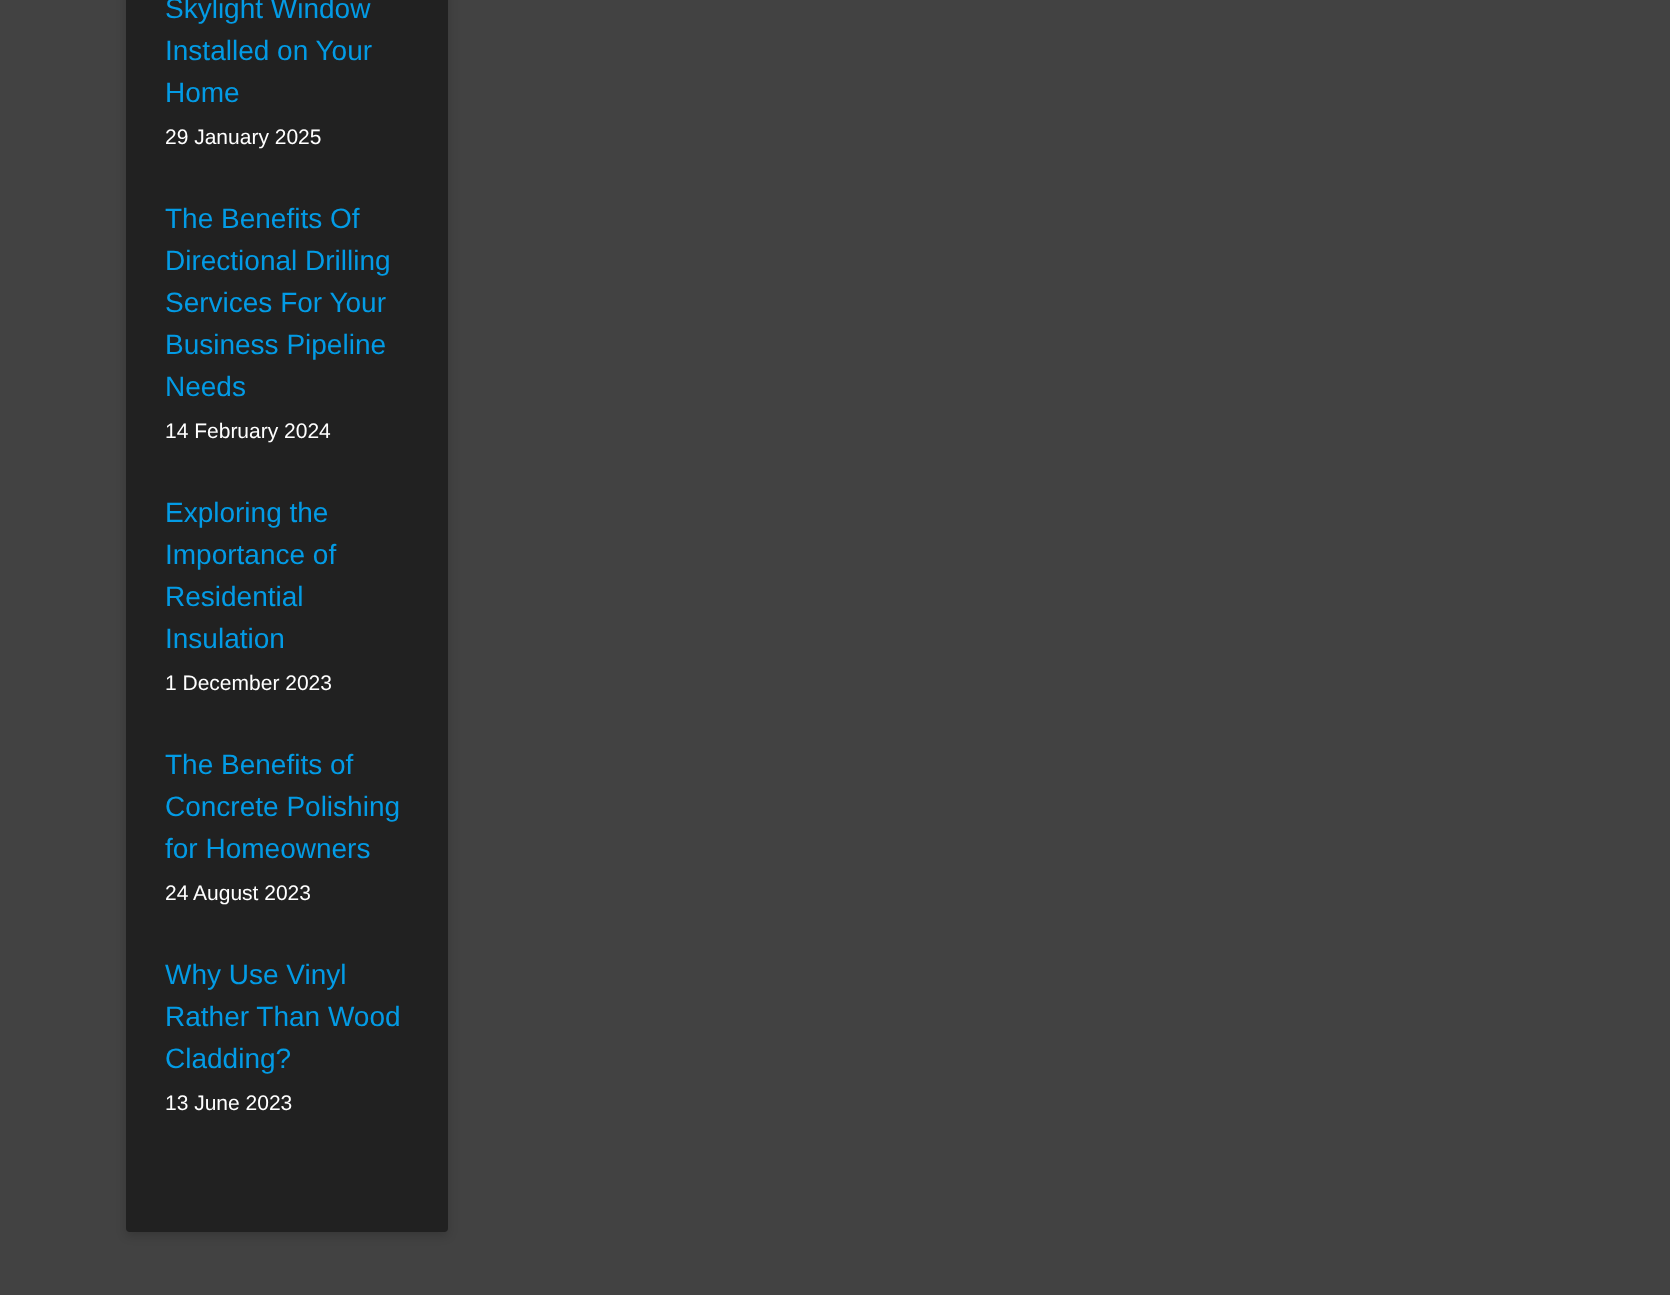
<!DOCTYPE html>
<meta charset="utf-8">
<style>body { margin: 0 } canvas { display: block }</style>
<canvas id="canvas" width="1670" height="1295"></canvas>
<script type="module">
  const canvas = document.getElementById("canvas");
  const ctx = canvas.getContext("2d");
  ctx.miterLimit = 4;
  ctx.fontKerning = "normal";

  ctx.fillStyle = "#424242";
  ctx.fillRect(0, 0, 1670, 1295);
  ctx.fillStyle = "rgba(0, 0, 0, 0.16)";
  ctx.filter = "blur(5px)";
  ctx.beginPath();
  ctx.roundRect(126, -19, 322, 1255, 4);
  ctx.fill();
  ctx.filter = "none";
  ctx.fillStyle = "#212121";
  ctx.beginPath();
  ctx.roundRect(126, -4, 322, 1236, 4);
  ctx.fill();
  ctx.font = "28px Liberation Sans";
  ctx.fillStyle = "#039be5";
  ctx.fillText("Skylight Window", 165, 18);
  ctx.fillText("Installed on Your", 165, 60);
  ctx.fillText("Home", 165, 102);
  ctx.font = "21px Liberation Sans";
  ctx.fillStyle = "#ffffff";
  ctx.fillText("29 January 2025", 165, 144);
  ctx.font = "28px Liberation Sans";
  ctx.fillStyle = "#039be5";
  ctx.fillText("The Benefits Of", 165, 228);
  ctx.fillText("Directional Drilling", 165, 270);
  ctx.fillText("Services For Your", 165, 312);
  ctx.fillText("Business Pipeline", 165, 354);
  ctx.fillText("Needs", 165, 396);
  ctx.font = "21px Liberation Sans";
  ctx.fillStyle = "#ffffff";
  ctx.fillText("14 February 2024", 165, 438);
  ctx.font = "28px Liberation Sans";
  ctx.fillStyle = "#039be5";
  ctx.fillText("Exploring the", 165, 522);
  ctx.fillText("Importance of", 165, 564);
  ctx.fillText("Residential", 165, 606);
  ctx.fillText("Insulation", 165, 648);
  ctx.font = "21px Liberation Sans";
  ctx.fillStyle = "#ffffff";
  ctx.fillText("1 December 2023", 165, 690);
  ctx.font = "28px Liberation Sans";
  ctx.fillStyle = "#039be5";
  ctx.fillText("The Benefits of", 165, 774);
  ctx.fillText("Concrete Polishing", 165, 816);
  ctx.fillText("for Homeowners", 165, 858);
  ctx.font = "21px Liberation Sans";
  ctx.fillStyle = "#ffffff";
  ctx.fillText("24 August 2023", 165, 900);
  ctx.font = "28px Liberation Sans";
  ctx.fillStyle = "#039be5";
  ctx.fillText("Why Use Vinyl", 165, 984);
  ctx.fillText("Rather Than Wood", 165, 1026);
  ctx.fillText("Cladding?", 165, 1068);
  ctx.font = "21px Liberation Sans";
  ctx.fillStyle = "#ffffff";
  ctx.fillText("13 June 2023", 165, 1110);
</script>
